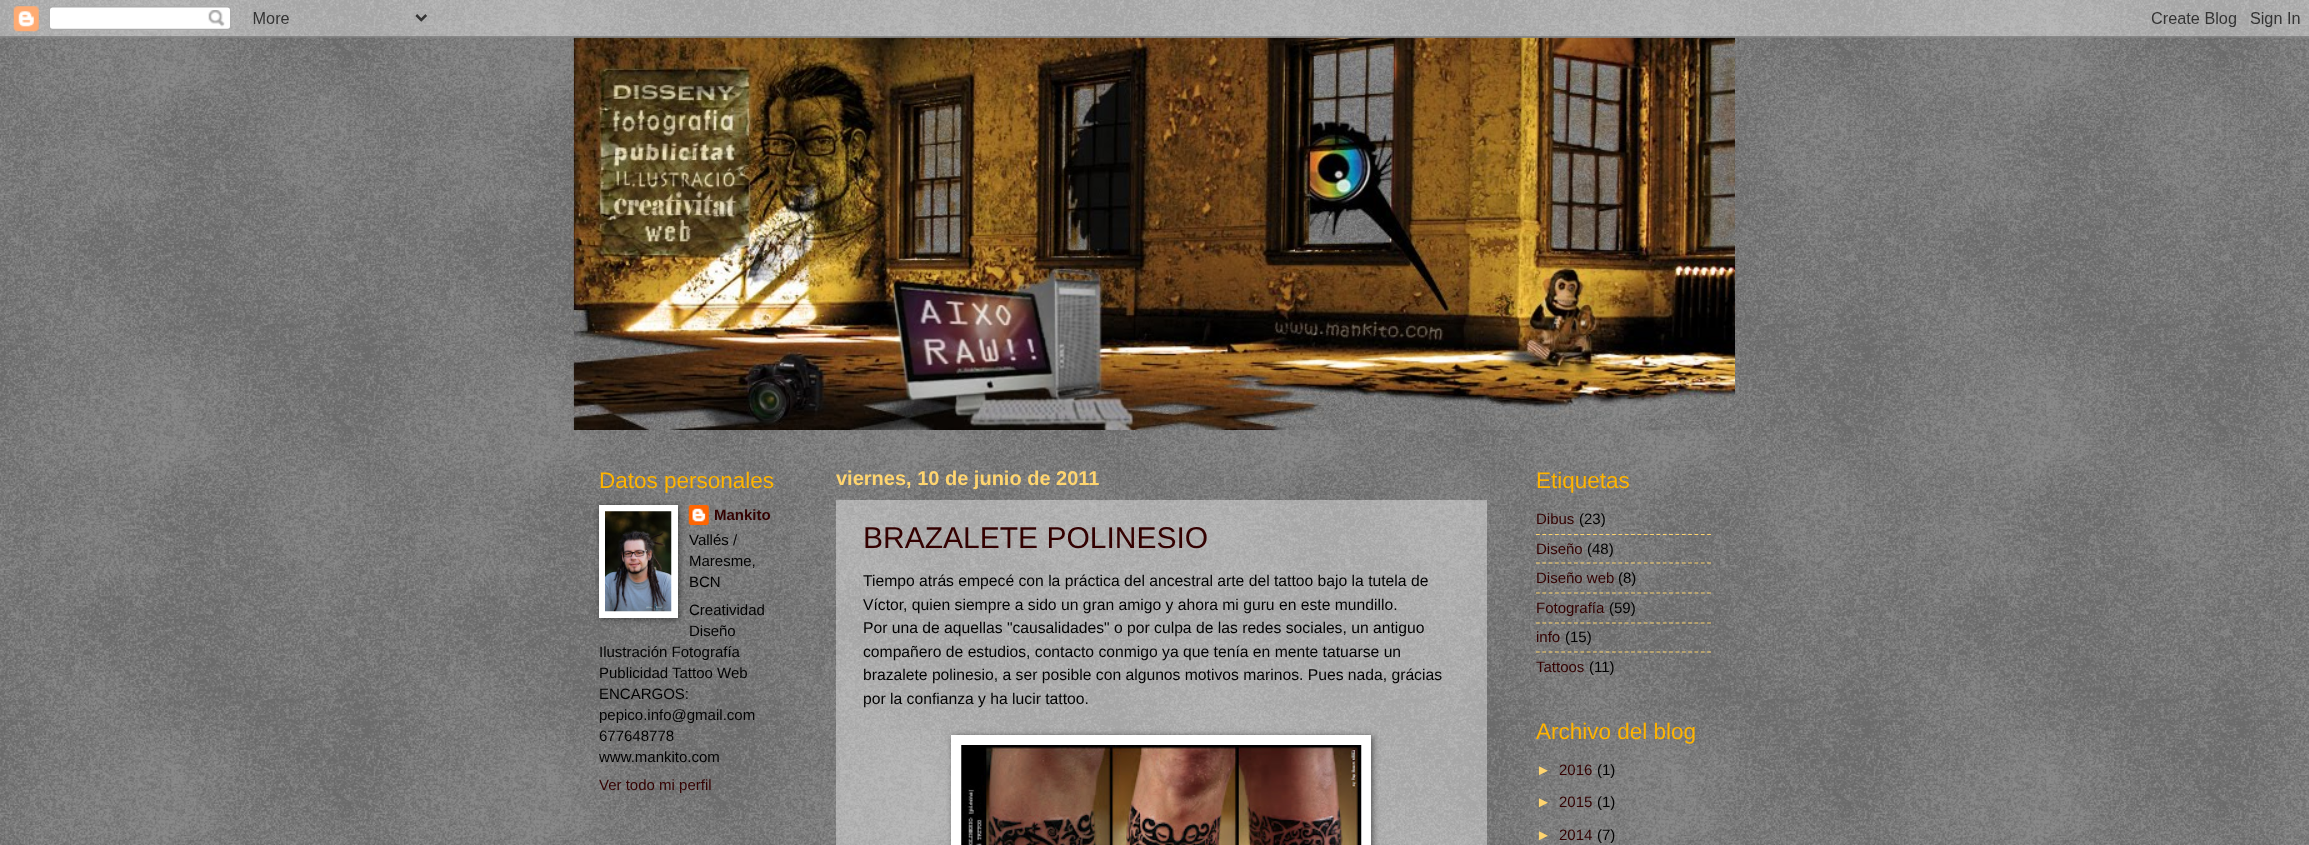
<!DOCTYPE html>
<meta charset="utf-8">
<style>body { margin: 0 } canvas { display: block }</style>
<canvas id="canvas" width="2309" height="845"></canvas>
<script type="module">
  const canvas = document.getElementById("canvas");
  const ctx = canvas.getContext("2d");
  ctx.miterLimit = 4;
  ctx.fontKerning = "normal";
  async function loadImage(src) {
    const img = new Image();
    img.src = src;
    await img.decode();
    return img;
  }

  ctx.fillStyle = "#000000";
  ctx.fillRect(0, 0, 2309, 845);
  ctx.drawImage(await loadImage("img1.png"), 0, 0, 2309, 845);
  ctx.drawImage(await loadImage("img3.png"), 573, 37, 1162, 393);
  ctx.drawImage(await loadImage("img2.png"), 0, 0, 2309, 38);
  ctx.font = "22.5px Liberation Sans";
  ctx.fillStyle = "#ffb400";
  ctx.fillText("Datos personales", 599, 488);
  ctx.drawImage(await loadImage("img5.png"), 688, 505, 21, 20);
  ctx.fillStyle = "rgba(0, 0, 0, 0.5)";
  ctx.filter = "blur(3px)";
  ctx.beginPath();
  ctx.rect(600, 506, 79, 113);
  ctx.fill();
  ctx.filter = "none";
  ctx.fillStyle = "#ffffff";
  ctx.fillRect(599, 505, 79, 113);
  ctx.drawImage(await loadImage("img4.png"), 605, 511, 67, 101);
  ctx.font = "bold 15px Liberation Sans";
  ctx.fillStyle = "#330000";
  ctx.fillText("Mankito", 714, 520);
  ctx.font = "15px Liberation Sans";
  ctx.fillStyle = "#000000";
  ctx.fillText("Vallés /", 689, 545);
  ctx.fillText("Maresme,", 689, 566);
  ctx.fillText("BCN", 689, 587);
  ctx.fillText("Creatividad", 689, 615);
  ctx.fillText("Diseño", 689, 636);
  ctx.fillText("Ilustración Fotografía", 599, 657);
  ctx.fillText("Publicidad", 599, 678);
  ctx.fillText("Tattoo Web", 672, 678);
  ctx.fillText("ENCARGOS:", 599, 699);
  ctx.fillText("pepico.info@gmail.com", 599, 720);
  ctx.fillText("677648778", 599, 741);
  ctx.fillText("www.mankito.com", 599, 762);
  ctx.fillStyle = "#330000";
  ctx.fillText("Ver todo mi perfil", 599, 790);
  ctx.font = "bold 20px Liberation Sans";
  ctx.fillStyle = "#ffd56f";
  ctx.fillText("viernes, 10 de junio de 2011", 836, 485);
  ctx.fillStyle = "rgba(255, 255, 255, 0.4)";
  ctx.fillRect(836, 500, 651, 345);
  ctx.font = "30px Liberation Sans";
  ctx.fillStyle = "#330000";
  ctx.fillText("BRAZALETE POLINESIO", 863, 548);
  ctx.font = "15.7px Liberation Sans";
  ctx.fillStyle = "#000000";
  ctx.fillText("Tiempo atrás empecé con la práctica del ancestral arte del tattoo bajo la tutela de", 863, 586);
  ctx.fillText("Víctor, quien siempre a sido un gran amigo y ahora mi guru en este mundillo.", 863, 610);
  ctx.fillText("Por una de aquellas \"causalidades\" o por culpa de las redes sociales, un antiguo", 863, 633);
  ctx.fillText("compañero de estudios, contacto conmigo ya que tenía en mente tatuarse un", 863, 657);
  ctx.fillText("brazalete polinesio, a ser posible con algunos motivos marinos. Pues nada, grácias", 863, 680);
  ctx.fillText("por la confianza y ha lucir tattoo.", 863, 704);
  ctx.fillStyle = "rgba(0, 0, 0, 0.5)";
  ctx.filter = "blur(3px)";
  ctx.beginPath();
  ctx.rect(953, 736, 420, 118);
  ctx.fill();
  ctx.filter = "none";
  ctx.fillStyle = "#ffffff";
  ctx.fillRect(951, 735, 420, 110);
  ctx.drawImage(await loadImage("img6.png"), 961, 745, 401, 100);
  ctx.font = "22.5px Liberation Sans";
  ctx.fillStyle = "#ffb400";
  ctx.fillText("Etiquetas", 1536, 488);
  ctx.font = "15px Liberation Sans";
  ctx.fillStyle = "#330000";
  ctx.fillText("Dibus", 1536, 524);
  ctx.fillStyle = "#000000";
  ctx.fillText("(23)", 1579, 524);
  ctx.beginPath();
  ctx.moveTo(1536, 534.5);
  ctx.lineTo(1711, 534.5);
  ctx.strokeStyle = "#ffd56f";
  ctx.lineWidth = 1.2;
  ctx.setLineDash([3.75, 2.59]);
  ctx.stroke();
  ctx.fillStyle = "#330000";
  ctx.fillText("Diseño", 1536, 554);
  ctx.fillStyle = "#000000";
  ctx.fillText("(48)", 1587, 554);
  ctx.beginPath();
  ctx.moveTo(1536, 563);
  ctx.lineTo(1711, 563);
  ctx.stroke();
  ctx.fillStyle = "#330000";
  ctx.fillText("Diseño web", 1536, 583);
  ctx.fillStyle = "#000000";
  ctx.fillText("(8)", 1618, 583);
  ctx.beginPath();
  ctx.moveTo(1536, 593);
  ctx.lineTo(1711, 593);
  ctx.stroke();
  ctx.fillStyle = "#330000";
  ctx.fillText("Fotografía", 1536, 613);
  ctx.fillStyle = "#000000";
  ctx.fillText("(59)", 1609, 613);
  ctx.beginPath();
  ctx.moveTo(1536, 623);
  ctx.lineTo(1711, 623);
  ctx.stroke();
  ctx.fillStyle = "#330000";
  ctx.fillText("info", 1536, 642);
  ctx.fillStyle = "#000000";
  ctx.fillText("(15)", 1565, 642);
  ctx.beginPath();
  ctx.moveTo(1536, 652);
  ctx.lineTo(1711, 652);
  ctx.stroke();
  ctx.fillStyle = "#330000";
  ctx.fillText("Tattoos", 1536, 672);
  ctx.fillStyle = "#000000";
  ctx.fillText("(11)", 1589, 672);
  ctx.font = "22.5px Liberation Sans";
  ctx.fillStyle = "#ffb400";
  ctx.fillText("Archivo del blog", 1536, 739);
  ctx.font = "15px Liberation Sans";
  ctx.fillStyle = "#ffd56f";
  ctx.fillText("►", 1536, 775);
  ctx.fillStyle = "#330000";
  ctx.fillText("2016", 1559, 775);
  ctx.fillStyle = "#000000";
  ctx.fillText("(1)", 1597, 775);
  ctx.fillStyle = "#ffd56f";
  ctx.fillText("►", 1536, 807);
  ctx.fillStyle = "#330000";
  ctx.fillText("2015", 1559, 807);
  ctx.fillStyle = "#000000";
  ctx.fillText("(1)", 1597, 807);
  ctx.fillStyle = "#ffd56f";
  ctx.fillText("►", 1536, 840);
  ctx.fillStyle = "#330000";
  ctx.fillText("2014", 1559, 840);
  ctx.fillStyle = "#000000";
  ctx.fillText("(7)", 1597, 840);
</script>
